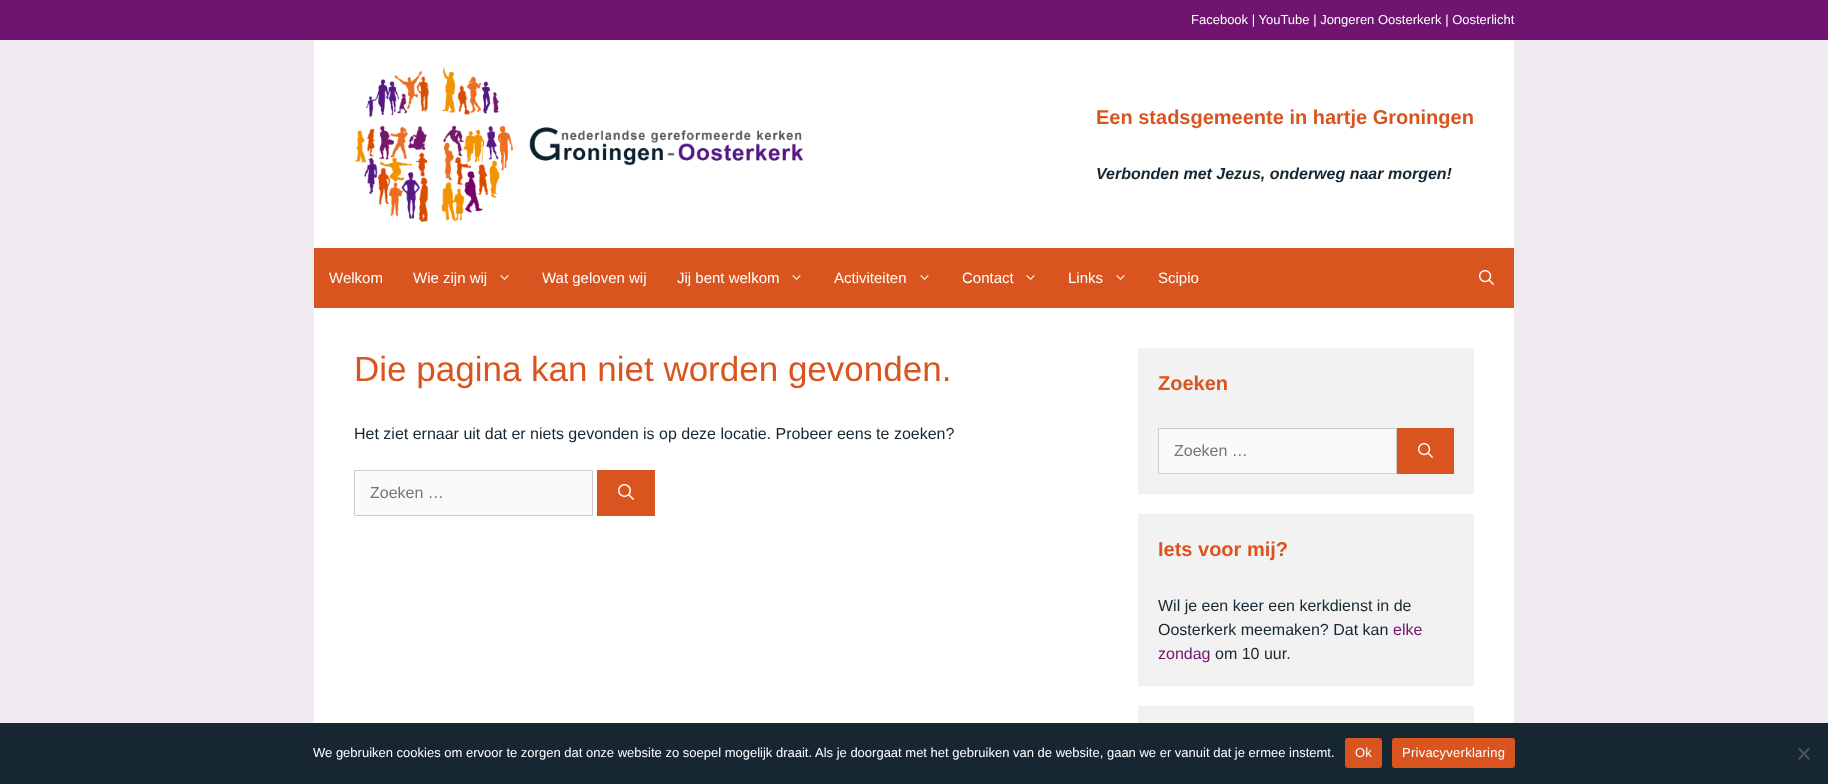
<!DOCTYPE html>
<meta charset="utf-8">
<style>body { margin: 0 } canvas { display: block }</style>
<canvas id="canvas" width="1828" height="784"></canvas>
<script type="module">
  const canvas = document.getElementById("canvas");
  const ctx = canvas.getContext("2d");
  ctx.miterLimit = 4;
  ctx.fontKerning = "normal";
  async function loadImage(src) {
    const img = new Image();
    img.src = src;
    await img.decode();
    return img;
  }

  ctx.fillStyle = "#f1ebf1";
  ctx.fillRect(0, 0, 1828, 784);
  ctx.fillStyle = "#701471";
  ctx.fillRect(0, 0, 1828, 40);
  ctx.font = "13px Liberation Sans";
  ctx.fillStyle = "#ffffff";
  ctx.fillText("Facebook | YouTube | Jongeren Oosterkerk | Oosterlicht", 1191, 24);
  ctx.fillRect(314, 40, 1200, 208);
  ctx.drawImage(await loadImage("img1.png"), 354, 66, 450, 156);
  ctx.font = "bold 20px Liberation Sans";
  ctx.fillStyle = "#d9541e";
  ctx.fillText("Een stadsgemeente in hartje Groningen", 1096, 124);
  ctx.font = "italic bold 16px Liberation Sans";
  ctx.fillStyle = "#162732";
  ctx.fillText("Verbonden met Jezus, onderweg naar morgen!", 1096, 179);
  ctx.fillStyle = "#d9541e";
  ctx.fillRect(314, 248, 1200, 60);
  ctx.font = "15px Liberation Sans";
  ctx.fillStyle = "#ffffff";
  ctx.fillText("Welkom", 329, 283);
  ctx.fillText("Wie zijn wij", 413, 283);
  ctx.drawImage(await loadImage("img2.png"), 500, 275, 9, 5);
  ctx.fillText("Wat geloven wij", 542, 283);
  ctx.fillText("Jij bent welkom", 677, 283);
  ctx.drawImage(await loadImage("img2.png"), 792, 275, 9, 5);
  ctx.fillText("Activiteiten", 834, 283);
  ctx.drawImage(await loadImage("img2.png"), 920, 275, 9, 5);
  ctx.fillText("Contact", 962, 283);
  ctx.drawImage(await loadImage("img2.png"), 1026, 275, 9, 5);
  ctx.fillText("Links", 1068, 283);
  ctx.drawImage(await loadImage("img2.png"), 1116, 275, 9, 5);
  ctx.fillText("Scipio", 1158, 283);
  ctx.drawImage(await loadImage("img3.png"), 1479, 270, 15, 15);
  ctx.fillRect(314, 308, 1200, 415);
  ctx.font = "35px Liberation Sans";
  ctx.fillStyle = "#d9541e";
  ctx.fillText("Die pagina kan niet worden gevonden.", 354, 381);
  ctx.font = "16px Liberation Sans";
  ctx.fillStyle = "#162732";
  ctx.fillText("Het ziet ernaar uit dat er niets gevonden is op deze locatie. Probeer eens te zoeken?", 354, 439);
  ctx.fillStyle = "#fafafa";
  ctx.beginPath();
  ctx.rect(354.5, 470.5, 238, 45);
  ctx.fill();
  ctx.strokeStyle = "#cccccc";
  ctx.stroke();
  ctx.fillStyle = "#757575";
  ctx.fillText("Zoeken …", 370, 498);
  ctx.fillStyle = "#d9541e";
  ctx.fillRect(597, 470, 58, 46);
  ctx.drawImage(await loadImage("img4.png"), 618, 484, 16, 16);
  ctx.fillStyle = "#f2f2f2";
  ctx.fillRect(1138, 348, 336, 146);
  ctx.font = "bold 20px Liberation Sans";
  ctx.fillStyle = "#d9541e";
  ctx.fillText("Zoeken", 1158, 390);
  ctx.fillStyle = "#fafafa";
  ctx.beginPath();
  ctx.rect(1158.5, 428.5, 238, 45);
  ctx.fill();
  ctx.stroke();
  ctx.font = "16px Liberation Sans";
  ctx.fillStyle = "#757575";
  ctx.fillText("Zoeken …", 1174, 456);
  ctx.fillStyle = "#d9541e";
  ctx.fillRect(1397, 428, 57, 46);
  ctx.drawImage(await loadImage("img3.png"), 1418, 443, 15, 15);
  ctx.fillStyle = "#f2f2f2";
  ctx.fillRect(1138, 514, 336, 172);
  ctx.font = "bold 20px Liberation Sans";
  ctx.fillStyle = "#d9541e";
  ctx.fillText("Iets voor mij?", 1158, 556);
  ctx.font = "16px Liberation Sans";
  ctx.fillStyle = "#162732";
  ctx.fillText("Wil je een keer een kerkdienst in de", 1158, 611);
  ctx.fillText("Oosterkerk meemaken? Dat kan", 1158, 635);
  ctx.fillStyle = "#701471";
  ctx.fillText("elke", 1393, 635);
  ctx.fillText("zondag", 1158, 659);
  ctx.fillStyle = "#162732";
  ctx.fillText("om 10 uur.", 1215, 659);
  ctx.fillStyle = "#f2f2f2";
  ctx.fillRect(1138, 706, 336, 17);
  ctx.fillStyle = "#162732";
  ctx.fillRect(0, 723, 1828, 61);
  ctx.font = "13px Liberation Sans";
  ctx.fillStyle = "#ffffff";
  ctx.fillText("We gebruiken cookies om ervoor te zorgen dat onze website zo soepel mogelijk draait. Als je doorgaat met het gebruiken van de website, gaan we er vanuit dat je ermee instemt.", 313, 757);
  ctx.fillStyle = "#d9541e";
  ctx.beginPath();
  ctx.roundRect(1345, 738, 37, 30, 3);
  ctx.fill();
  ctx.letterSpacing = "0.25px";
  ctx.fillStyle = "#ffffff";
  ctx.fillText("Ok", 1355, 757);
  ctx.fillStyle = "#d9541e";
  ctx.beginPath();
  ctx.roundRect(1392, 738, 123, 30, 3);
  ctx.fill();
  ctx.fillStyle = "#ffffff";
  ctx.fillText("Privacyverklaring", 1402, 757);
  ctx.fillStyle = "#4b5459";
  ctx.beginPath();
  ctx.moveTo(1808.5, 747.5);
  ctx.lineTo(1810, 749);
  ctx.lineTo(1799.5, 760);
  ctx.lineTo(1798, 758.5);
  ctx.closePath();
  ctx.fill();
  ctx.beginPath();
  ctx.moveTo(1798, 749);
  ctx.lineTo(1799.5, 747.5);
  ctx.lineTo(1810, 758.5);
  ctx.lineTo(1808.5, 760);
  ctx.closePath();
  ctx.fill();
</script>
